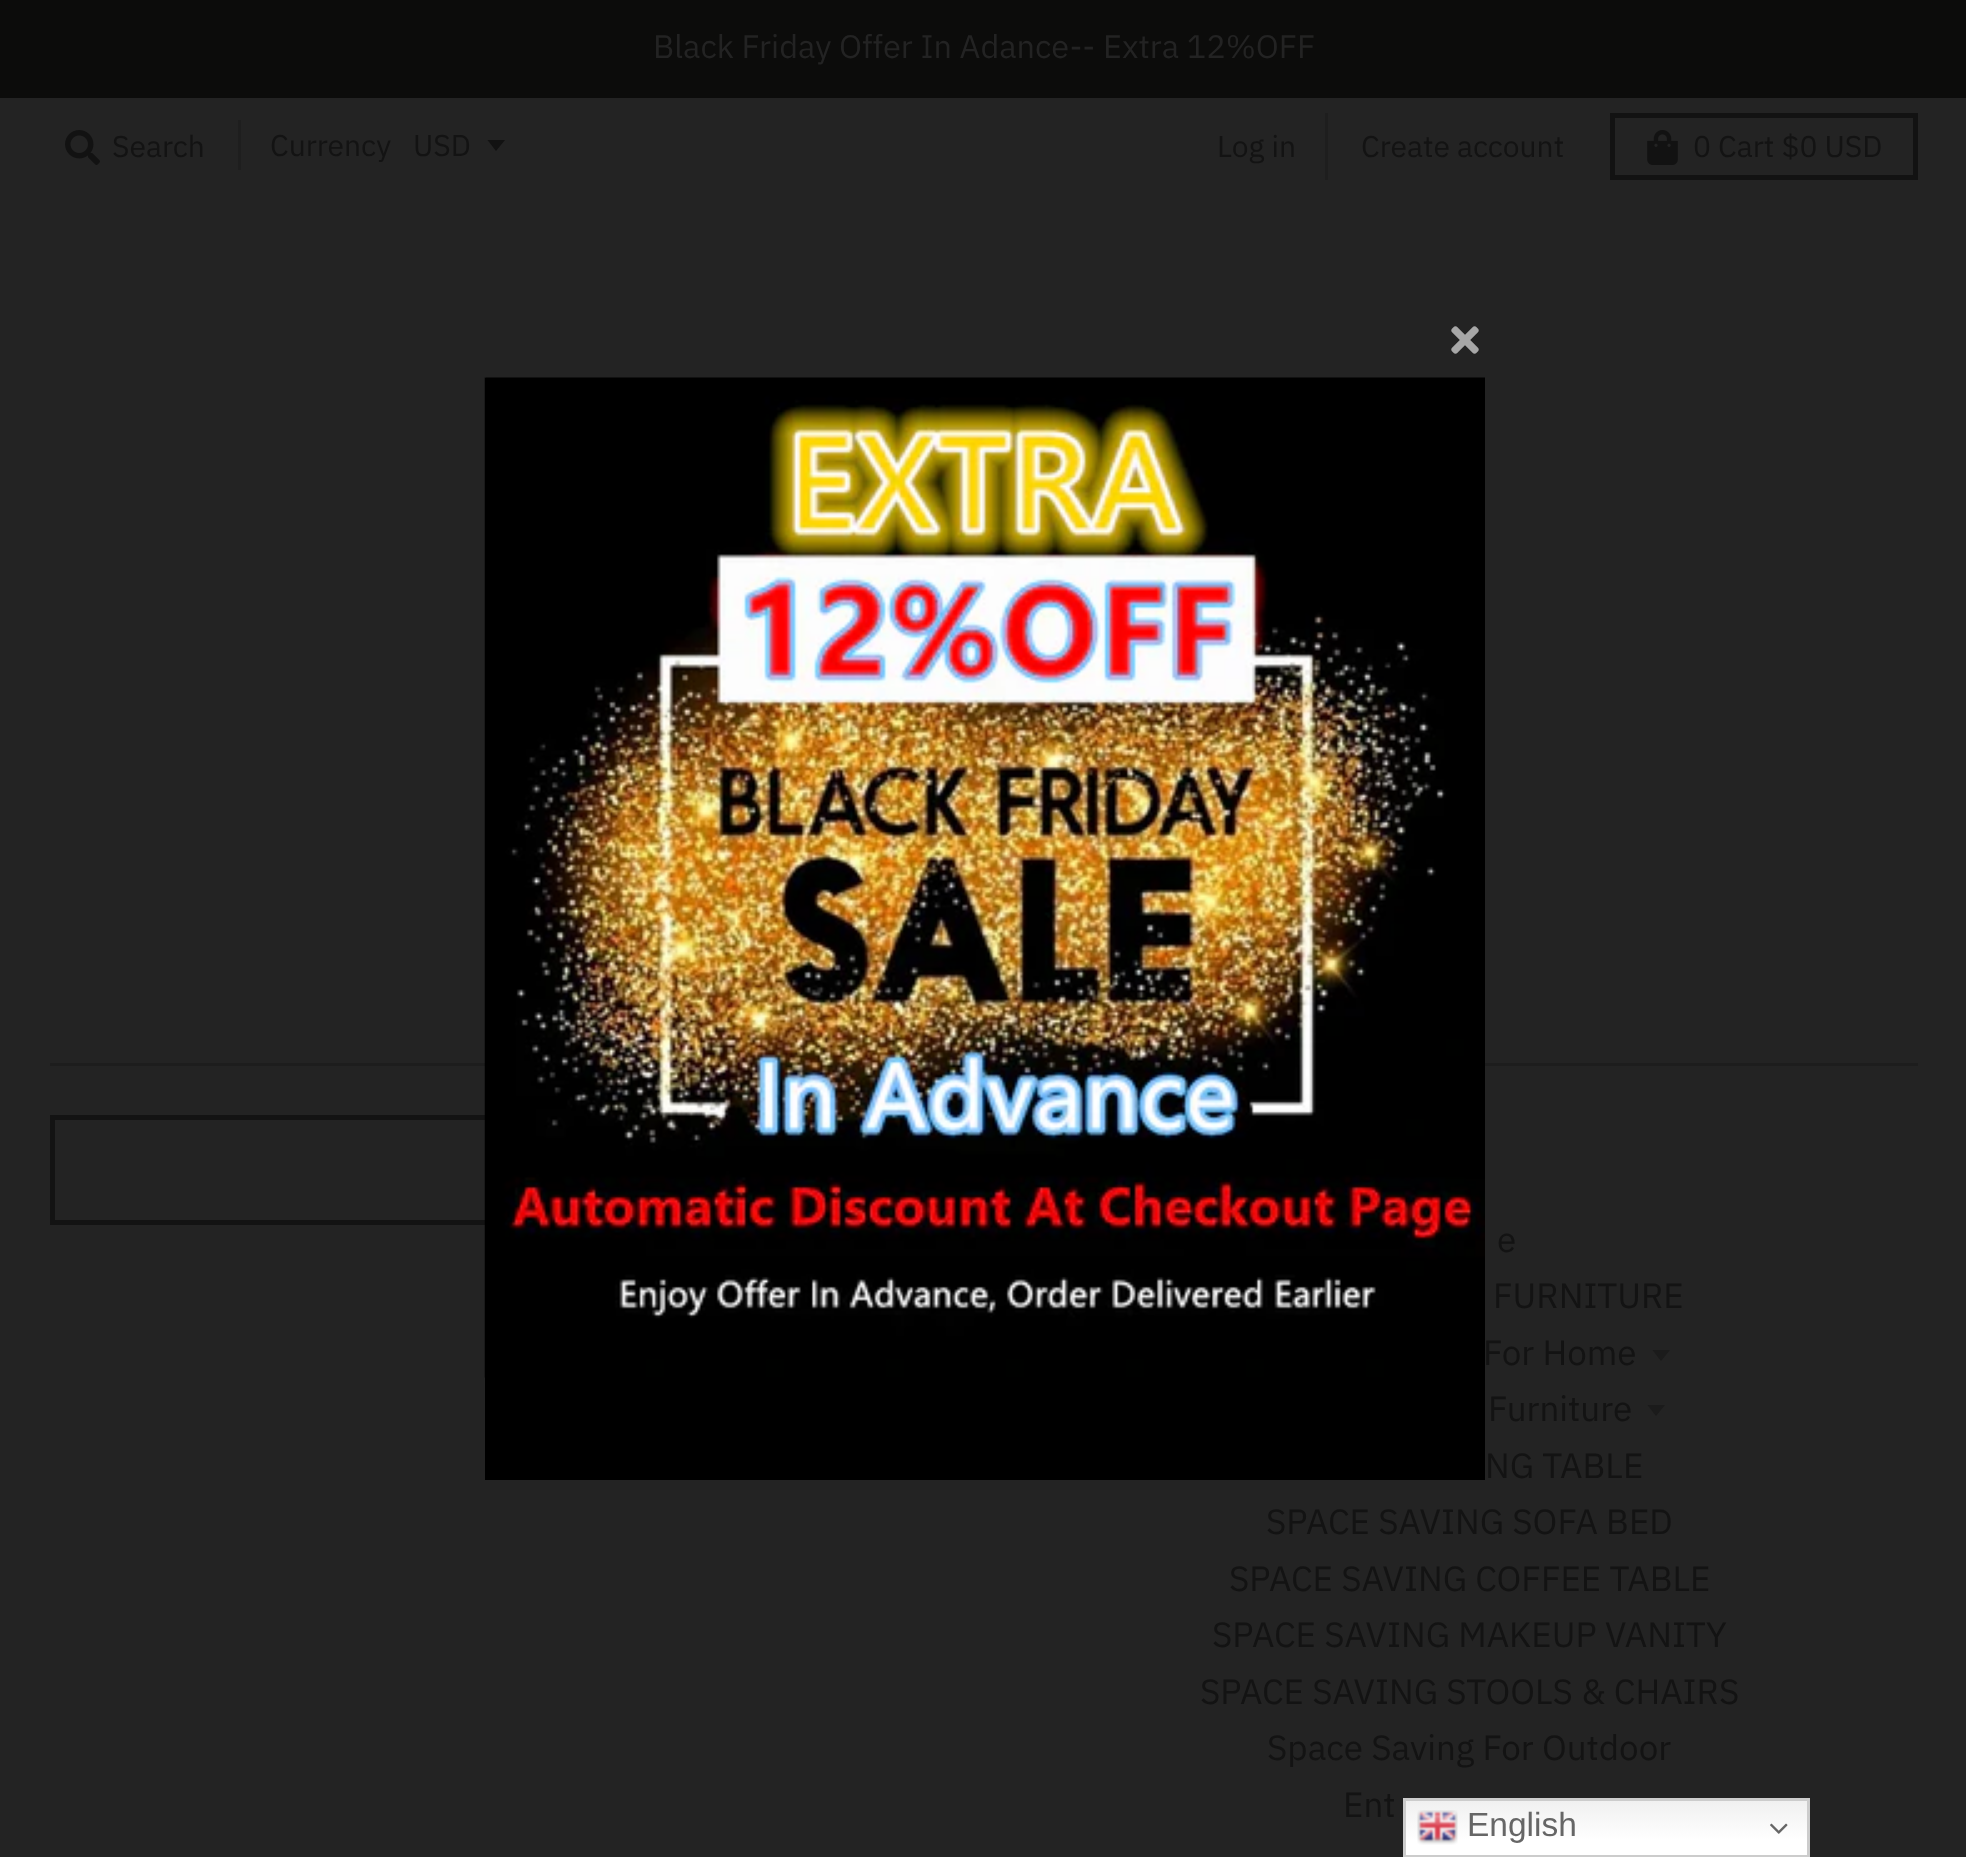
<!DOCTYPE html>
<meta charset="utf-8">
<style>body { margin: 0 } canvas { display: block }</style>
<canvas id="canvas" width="1966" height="1857"></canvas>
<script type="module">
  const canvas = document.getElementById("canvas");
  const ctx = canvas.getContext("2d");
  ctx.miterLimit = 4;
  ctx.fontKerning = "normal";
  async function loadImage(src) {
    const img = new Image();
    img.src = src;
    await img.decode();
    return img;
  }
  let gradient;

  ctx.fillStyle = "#232323";
  ctx.fillRect(0, 0, 1966, 1857);
  ctx.fillStyle = "#0c0c0b";
  ctx.fillRect(0, 0, 1966, 98);
  ctx.font = "32.5px IBM Plex Sans";
  ctx.fillStyle = "#232323";
  ctx.fillText("Black Friday Offer In Adance-- Extra 12%OFF", 653, 58);
  ctx.drawImage(await loadImage("img1.png"), 65, 130, 35, 35);
  ctx.font = "30px IBM Plex Sans";
  ctx.fillStyle = "#131313";
  ctx.fillText("Search", 112, 157);
  ctx.fillStyle = "#1e1e1e";
  ctx.fillRect(238, 120, 3, 50);
  ctx.fillStyle = "#131313";
  ctx.fillText("Currency", 270, 156);
  ctx.fillStyle = "#121212";
  ctx.beginPath();
  ctx.moveTo(487.5, 140);
  ctx.lineTo(496, 151);
  ctx.lineTo(505, 140);
  ctx.closePath();
  ctx.fill();
  ctx.fillStyle = "#131313";
  ctx.fillText("USD", 413, 156);
  ctx.fillStyle = "#1e1e1e";
  ctx.fillRect(1325, 113, 3, 67);
  ctx.fillStyle = "#131313";
  ctx.fillText("Log in", 1217, 157);
  ctx.fillText("Create account", 1361, 157);
  ctx.strokeStyle = "#121212";
  ctx.lineWidth = 5;
  ctx.strokeRect(1612.5, 115.5, 303, 62);
  ctx.drawImage(await loadImage("img2.png"), 1647, 130, 31, 35);
  ctx.fillText("0 Cart $0 USD", 1693, 157);
  ctx.fillStyle = "#1d1d1d";
  ctx.fillRect(50, 1063, 1868, 3);
  ctx.strokeStyle = "#131313";
  ctx.strokeRect(52.5, 1117.5, 788, 105);
  ctx.font = "35px IBM Plex Sans";
  ctx.fillStyle = "#131313";
  ctx.fillText("e", 1497, 1252);
  ctx.fillText("FURNITURE", 1493, 1308);
  ctx.fillText("For Home", 1483, 1365);
  ctx.fillStyle = "#1b1b1b";
  ctx.beginPath();
  ctx.moveTo(1652.5, 1350);
  ctx.lineTo(1661, 1361);
  ctx.lineTo(1670, 1350);
  ctx.closePath();
  ctx.fill();
  ctx.fillStyle = "#131313";
  ctx.fillText("Furniture", 1488, 1421);
  ctx.fillStyle = "#1b1b1b";
  ctx.beginPath();
  ctx.moveTo(1647.5, 1405);
  ctx.lineTo(1656, 1416);
  ctx.lineTo(1665, 1405);
  ctx.closePath();
  ctx.fill();
  ctx.fillStyle = "#131313";
  ctx.fillText("NG TABLE", 1485, 1478);
  ctx.fillText("SPACE SAVING SOFA BED", 1266, 1534);
  ctx.fillText("SPACE SAVING COFFEE TABLE", 1229, 1591);
  ctx.fillText("SPACE SAVING MAKEUP VANITY", 1212, 1647);
  ctx.fillText("SPACE SAVING STOOLS & CHAIRS", 1200, 1704);
  ctx.fillText("Space Saving For Outdoor", 1267, 1760);
  ctx.fillText("Ent", 1343, 1817);
  ctx.fillStyle = "#000000";
  ctx.fillRect(485, 378, 1000, 1102);
  ctx.drawImage(await loadImage("img3.png"), 1451, 326, 28, 28);
  ctx.drawImage(await loadImage("img4.png"), 484, 377, 1001, 1001);
  gradient = ctx.createLinearGradient(1606, 1798, 1606, 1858);
  gradient.addColorStop(0, "#efefef");
  gradient.addColorStop(0.7, "#ffffff");
  ctx.fillStyle = gradient;
  ctx.fillRect(1406, 1801, 401, 54);
  ctx.strokeStyle = "#cccccc";
  ctx.lineWidth = 3;
  ctx.strokeRect(1404.5, 1799.5, 404, 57);
  ctx.drawImage(await loadImage("img5.png"), 1417, 1810, 41, 35);
  ctx.font = "33.5px Liberation Sans";
  ctx.fillStyle = "#666666";
  ctx.fillText("English", 1467, 1836);
  ctx.drawImage(await loadImage("img6.png"), 1770, 1823, 18, 11);
</script>
